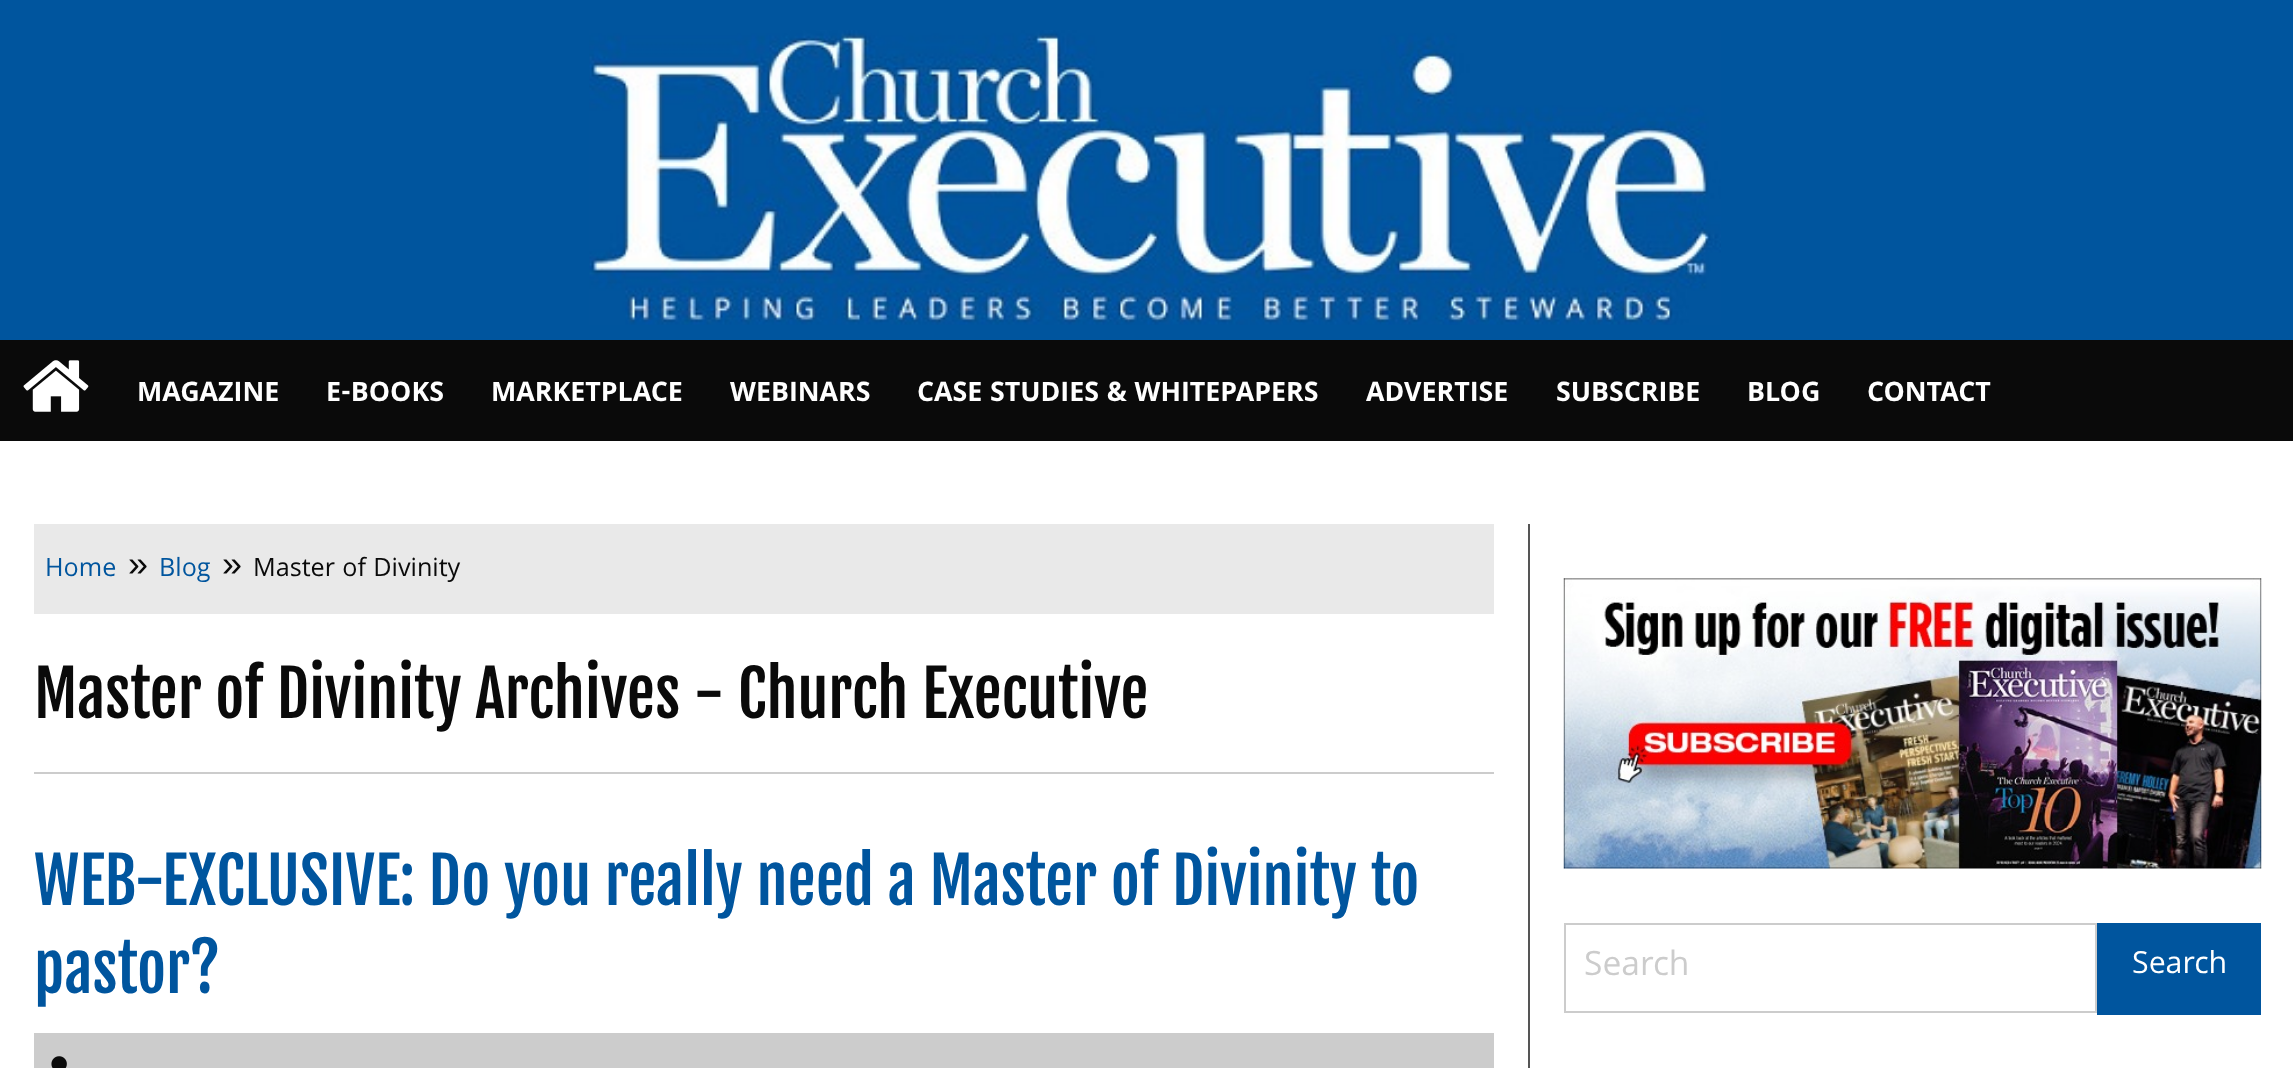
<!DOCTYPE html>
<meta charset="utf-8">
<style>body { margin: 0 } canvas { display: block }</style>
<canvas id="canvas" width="2293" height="1068"></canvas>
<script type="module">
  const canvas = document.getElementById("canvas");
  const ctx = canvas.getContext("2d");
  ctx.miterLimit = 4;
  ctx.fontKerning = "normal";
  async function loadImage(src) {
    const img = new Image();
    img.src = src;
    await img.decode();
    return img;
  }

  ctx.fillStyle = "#ffffff";
  ctx.fillRect(0, 0, 2293, 1068);
  ctx.fillStyle = "#00559e";
  ctx.fillRect(0, 0, 2293, 340);
  ctx.drawImage(await loadImage("img1.png"), 589, 30, 1132, 295);
  ctx.fillStyle = "#0a0a0a";
  ctx.fillRect(0, 340, 2293, 101);
  ctx.drawImage(await loadImage("img2.png"), 23, 360, 66, 52);
  ctx.font = "bold 28.75px Khula";
  ctx.fillStyle = "#ffffff";
  ctx.fillText("MAGAZINE", 137, 401);
  ctx.fillText("E-BOOKS", 326, 401);
  ctx.fillText("MARKETPLACE", 491, 401);
  ctx.fillText("WEBINARS", 730, 401);
  ctx.fillText("CASE STUDIES & WHITEPAPERS", 917, 401);
  ctx.fillText("ADVERTISE", 1366, 401);
  ctx.fillText("SUBSCRIBE", 1556, 401);
  ctx.fillText("BLOG", 1747, 401);
  ctx.fillText("CONTACT", 1867, 401);
  ctx.fillStyle = "#555555";
  ctx.fillRect(1528, 524, 2, 544);
  ctx.fillStyle = "#e9e9e9";
  ctx.fillRect(34, 524, 1460, 90);
  ctx.font = "27px Khula";
  ctx.fillStyle = "#00559e";
  ctx.fillText("Home", 45, 576);
  ctx.font = "36px Liberation Sans";
  ctx.fillStyle = "#0a0a0a";
  ctx.fillText("»", 128, 576);
  ctx.font = "27px Khula";
  ctx.fillStyle = "#00559e";
  ctx.fillText("Blog", 159, 576);
  ctx.font = "36px Liberation Sans";
  ctx.fillStyle = "#0a0a0a";
  ctx.fillText("»", 222, 576);
  ctx.font = "27px Khula";
  ctx.fillText("Master of Divinity", 253, 576);
  ctx.font = "63px Fjalla One";
  ctx.fillText("Master of Divinity Archives - Church Executive", 34, 718);
  ctx.fillStyle = "#cccccc";
  ctx.fillRect(34, 772, 1460, 2);
  ctx.fillStyle = "#00559e";
  ctx.fillText("WEB-EXCLUSIVE: Do you really need a Master of Divinity to", 34, 905);
  ctx.fillText("pastor?", 34, 993);
  ctx.fillStyle = "#cccccc";
  ctx.fillRect(34, 1033, 1460, 35);
  ctx.drawImage(await loadImage("img3.png"), 51, 1056, 16, 12);
  ctx.drawImage(await loadImage("img4.png"), 1563, 578, 699, 291);
  ctx.strokeStyle = "#cccccc";
  ctx.lineWidth = 2;
  ctx.strokeRect(1565, 924, 531, 88);
  ctx.font = "36px Khula";
  ctx.fillText("Search", 1584, 975);
  ctx.fillStyle = "#00559e";
  ctx.fillRect(2097, 923, 164, 92);
  ctx.font = "32.5px Khula";
  ctx.fillStyle = "#ffffff";
  ctx.fillText("Search", 2132, 973);
</script>
